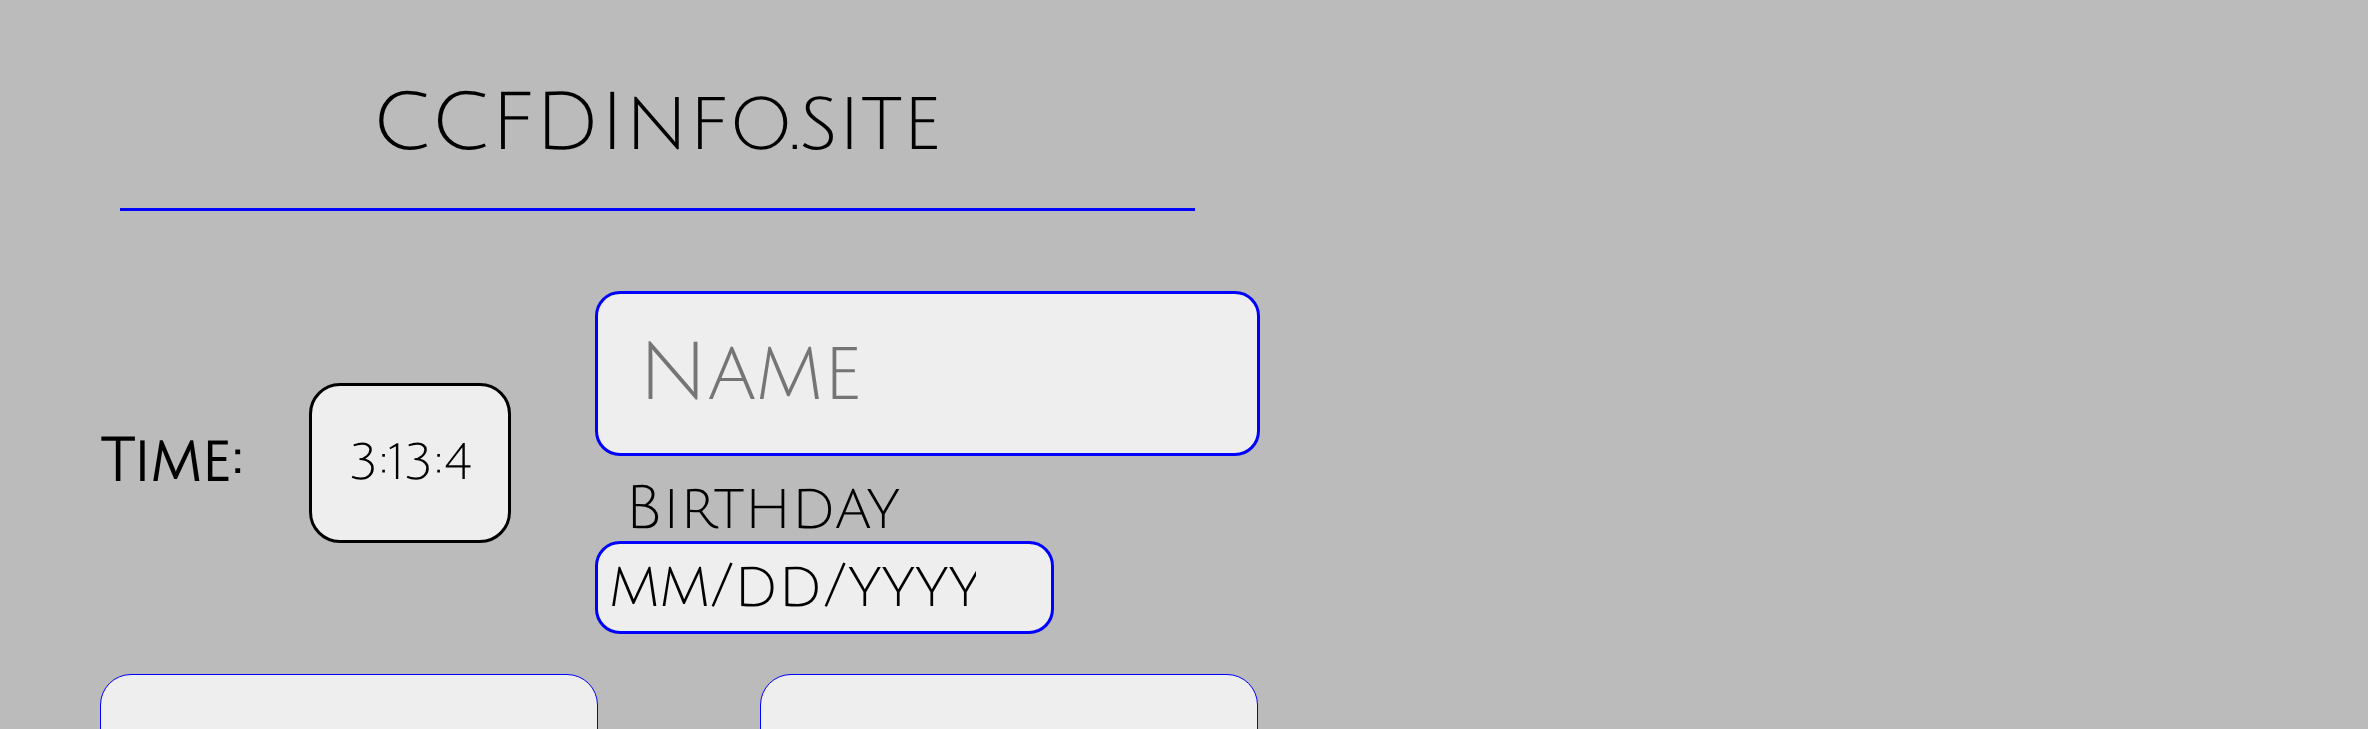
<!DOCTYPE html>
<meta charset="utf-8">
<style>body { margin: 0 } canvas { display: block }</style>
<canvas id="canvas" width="2368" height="729"></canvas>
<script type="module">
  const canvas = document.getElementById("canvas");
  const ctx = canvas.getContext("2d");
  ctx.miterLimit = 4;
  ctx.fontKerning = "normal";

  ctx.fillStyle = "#bbbbbb";
  ctx.fillRect(0, 0, 2368, 729);
  ctx.font = "80px Julius Sans One";
  ctx.fillStyle = "#000000";
  ctx.fillText("CCFDInfo.site", 372, 149);
  ctx.fillStyle = "#0000ff";
  ctx.fillRect(120, 208, 1075, 3);
  ctx.font = "bold 60px Julius Sans One";
  ctx.fillStyle = "#000000";
  ctx.fillText("Time:", 100, 481);
  ctx.fillStyle = "#eeeeee";
  ctx.beginPath();
  ctx.roundRect(310.5, 384.5, 199, 157, 29.5);
  ctx.fill();
  ctx.strokeStyle = "#000000";
  ctx.lineWidth = 3;
  ctx.stroke();
  ctx.font = "50px Julius Sans One";
  ctx.fillStyle = "#000000";
  ctx.fillText("3:13:4", 349, 479);
  ctx.fillStyle = "#eeeeee";
  ctx.beginPath();
  ctx.roundRect(596.5, 292.5, 662, 162, 23.5);
  ctx.fill();
  ctx.strokeStyle = "#0000ff";
  ctx.stroke();
  ctx.font = "80px Julius Sans One";
  ctx.fillStyle = "#757575";
  ctx.fillText("Name", 638, 399);
  ctx.font = "60px Julius Sans One";
  ctx.fillStyle = "#000000";
  ctx.fillText("Birthday", 625, 528);
  ctx.fillStyle = "#eeeeee";
  ctx.beginPath();
  ctx.roundRect(596.5, 542.5, 456, 90, 23.5);
  ctx.fill();
  ctx.stroke();
  ctx.fillStyle = "#000000";
  ctx.fillText("mm", 609, 606);
  ctx.fillText("/", 711, 606);
  ctx.fillText("dd", 734, 606);
  ctx.fillText("/", 824, 606);
  ctx.save();
  ctx.beginPath();
  ctx.rect(608, 554, 368, 67);
  ctx.clip();
  ctx.fillText("yyyy", 848, 606);
  ctx.restore();
  ctx.fillStyle = "#eeeeee";
  ctx.beginPath();
  ctx.roundRect(100.5, 674.5, 497, 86, 30.5);
  ctx.fill();
  ctx.lineWidth = 1;
  ctx.stroke();
  ctx.beginPath();
  ctx.roundRect(760.5, 674.5, 497, 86, 30.5);
  ctx.fill();
  ctx.stroke();
</script>
